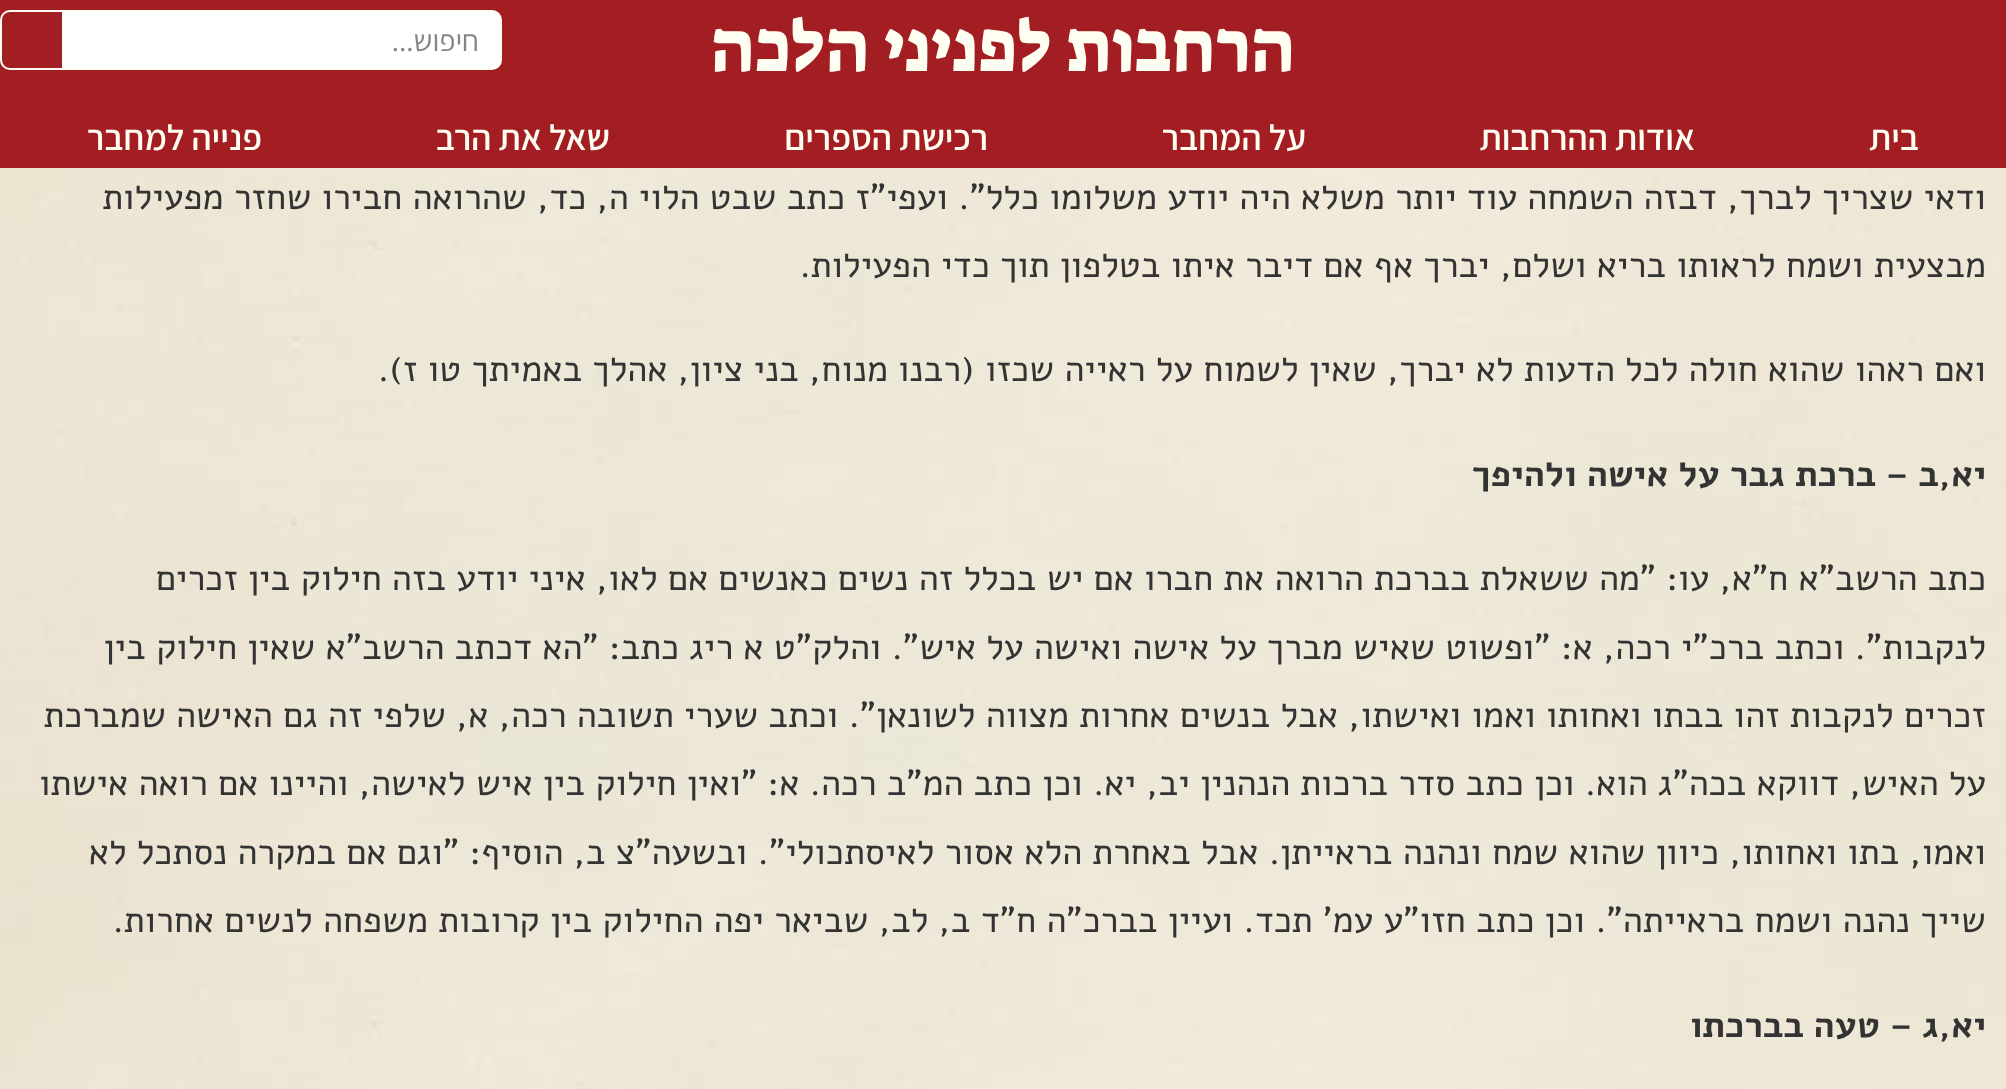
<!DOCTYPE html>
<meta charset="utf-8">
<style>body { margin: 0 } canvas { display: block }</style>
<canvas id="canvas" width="2006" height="1089"></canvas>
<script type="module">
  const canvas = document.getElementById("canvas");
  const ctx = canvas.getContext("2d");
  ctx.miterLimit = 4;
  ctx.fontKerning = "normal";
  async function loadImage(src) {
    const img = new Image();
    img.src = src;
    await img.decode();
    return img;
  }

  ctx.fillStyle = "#ffffff";
  ctx.fillRect(0, 0, 2006, 1089);
  ctx.drawImage(await loadImage("img1.png"), 0, 168, 2006, 921);
  ctx.fillStyle = "#a31e23";
  ctx.fillRect(0, 0, 2006, 168);
  ctx.direction = "rtl";
  ctx.font = "72px Suez One";
  ctx.fillStyle = "#fffef2";
  ctx.fillText("הרחבות לפניני הלכה", 1295, 71);
  ctx.fillStyle = "#ffffff";
  ctx.beginPath();
  ctx.roundRect(1, 11, 500, 58, 9);
  ctx.fill();
  ctx.strokeStyle = "#fffef2";
  ctx.lineWidth = 2;
  ctx.stroke();
  ctx.font = "30px Assistant";
  ctx.fillStyle = "#858585";
  ctx.fillText("חיפוש...", 479, 51);
  ctx.fillStyle = "#a31e23";
  ctx.beginPath();
  ctx.roundRect(2, 12, 60, 56, [8, 0, 0, 8]);
  ctx.fill();
  ctx.font = "600 36px Assistant";
  ctx.fillStyle = "#fffef2";
  ctx.fillText("בית", 1919, 150);
  ctx.fillText("אודות ההרחבות", 1695, 150);
  ctx.fillText("על המחבר", 1306, 150);
  ctx.fillText("רכישת הספרים", 988, 150);
  ctx.fillText("שאל את הרב", 610, 150);
  ctx.fillText("פנייה למחבר", 262, 150);
  ctx.font = "36px Alef";
  ctx.fillStyle = "#333333";
  ctx.fillText("ודאי שצריך לברך, דבזה השמחה עוד יותר משלא היה יודע משלומו כלל\". ועפי\"ז כתב שבט הלוי ה, כד, שהרואה חבירו שחזר מפעילות", 1986, 209);
  ctx.fillText("מבצעית ושמח לראותו בריא ושלם, יברך אף אם דיבר איתו בטלפון תוך כדי הפעילות.", 1986, 277);
  ctx.fillText("ואם ראהו שהוא חולה לכל הדעות לא יברך, שאין לשמוח על ראייה שכזו (רבנו מנוח, בני ציון, אהלך באמיתך טו ז).", 1986, 381);
  ctx.font = "bold 36px Alef";
  ctx.fillText("יא,ב – ברכת גבר על אישה ולהיפך", 1986, 486);
  ctx.font = "36px Alef";
  ctx.fillText("כתב הרשב\"א ח\"א, עו: \"מה ששאלת בברכת הרואה את חברו אם יש בכלל זה נשים כאנשים אם לאו, איני יודע בזה חילוק בין זכרים", 1986, 590);
  ctx.fillText("לנקבות\". וכתב ברכ\"י רכה, א: \"ופשוט שאיש מברך על אישה ואישה על איש\". והלק\"ט א ריג כתב: \"הא דכתב הרשב\"א שאין חילוק בין", 1986, 659);
  ctx.fillText("זכרים לנקבות זהו בבתו ואחותו ואמו ואישתו, אבל בנשים אחרות מצווה לשונאן\". וכתב שערי תשובה רכה, א, שלפי זה גם האישה שמברכת", 1986, 727);
  ctx.fillText("על האיש, דווקא בכה\"ג הוא. וכן כתב סדר ברכות הנהנין יב, יא. וכן כתב המ\"ב רכה. א: \"ואין חילוק בין איש לאישה, והיינו אם רואה אישתו", 1986, 795);
  ctx.fillText("ואמו, בתו ואחותו, כיוון שהוא שמח ונהנה בראייתן. אבל באחרת הלא אסור לאיסתכולי\". ובשעה\"צ ב, הוסיף: \"וגם אם במקרה נסתכל לא", 1986, 864);
  ctx.fillText("שייך נהנה ושמח בראייתה\". וכן כתב חזו\"ע עמ' תכד. ועיין בברכ\"ה ח\"ד ב, לב, שביאר יפה החילוק בין קרובות משפחה לנשים אחרות.", 1986, 932);
  ctx.font = "bold 36px Alef";
  ctx.fillText("יא,ג – טעה בברכתו", 1986, 1037);
</script>
